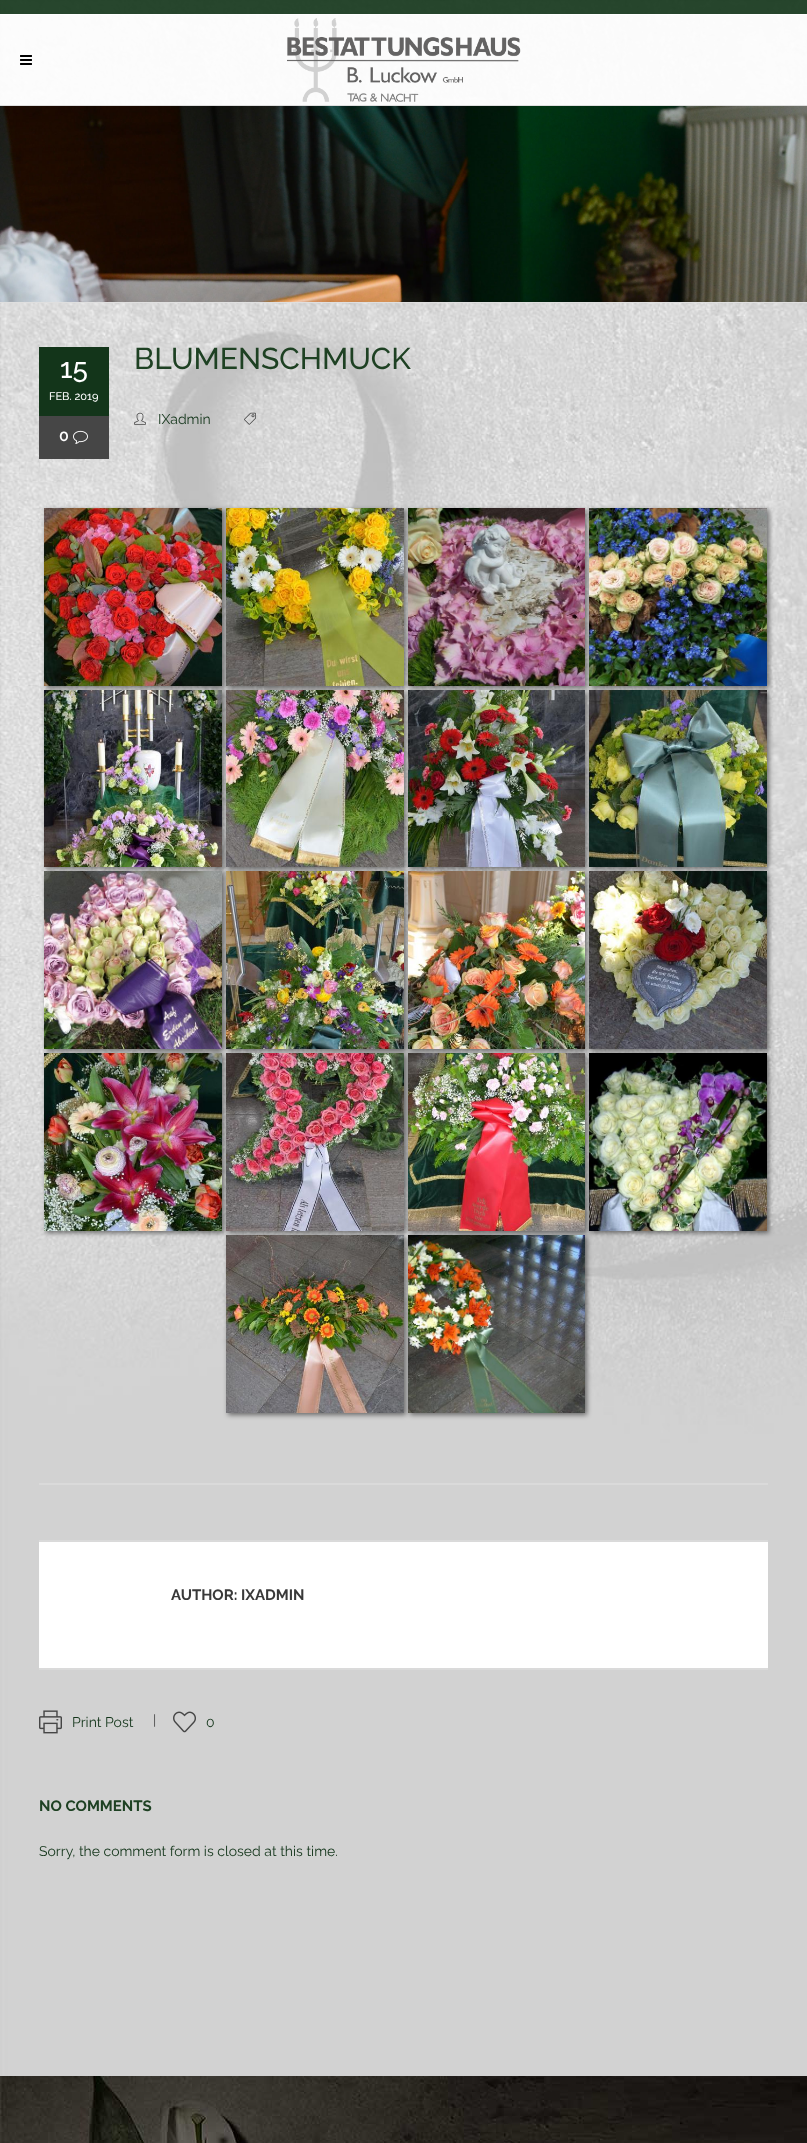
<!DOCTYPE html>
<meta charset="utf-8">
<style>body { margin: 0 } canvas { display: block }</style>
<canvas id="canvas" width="807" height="2143"></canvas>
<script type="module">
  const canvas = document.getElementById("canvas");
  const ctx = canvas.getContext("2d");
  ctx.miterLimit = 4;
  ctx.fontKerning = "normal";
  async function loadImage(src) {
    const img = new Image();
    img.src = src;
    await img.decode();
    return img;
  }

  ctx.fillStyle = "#ffffff";
  ctx.fillRect(0, 0, 807, 2143);
  ctx.drawImage(await loadImage("img1.png"), 0, 0, 807, 2076);
  ctx.fillStyle = "rgba(19, 53, 26, 0.9)";
  ctx.fillRect(0, 0, 807, 14);
  ctx.fillStyle = "#ffffff";
  ctx.fillRect(0, 14, 807, 1);
  ctx.fillStyle = "rgba(255, 255, 255, 0.9)";
  ctx.fillRect(0, 15, 807, 90);
  ctx.fillStyle = "#dfdfdf";
  ctx.fillRect(0, 105, 807, 1);
  ctx.drawImage(await loadImage("img2.png"), 20, 55, 12, 10);
  ctx.drawImage(await loadImage("img3.png"), 287, 18, 234, 84);
  ctx.fillRect(0, 302, 807, 1);
  ctx.drawImage(await loadImage("img4.png"), 0, 106, 807, 196);
  ctx.fillStyle = "#dadada";
  ctx.fillRect(39, 1483, 729, 2);
  ctx.fillStyle = "#13351a";
  ctx.fillRect(39, 347, 70, 69);
  ctx.font = "100 28px Raleway";
  ctx.fillStyle = "#ffffff";
  ctx.fillText("15", 60, 378);
  ctx.font = "100 11px Raleway";
  ctx.fillText("FEB. 2019", 49, 400);
  ctx.fillStyle = "#464646";
  ctx.fillRect(39, 416, 70, 43);
  ctx.font = "100 16px 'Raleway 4'";
  ctx.fillStyle = "#ffffff";
  ctx.fillText("0", 59, 441);
  ctx.drawImage(await loadImage("img5.png"), 73, 430, 15, 14);
  ctx.font = "100 30px Raleway";
  ctx.fillStyle = "#1e4123";
  ctx.fillText("BLUMENSCHMUCK", 134, 369);
  ctx.drawImage(await loadImage("img6.png"), 134, 412, 12, 13);
  ctx.font = "100 14px 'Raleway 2'";
  ctx.fillStyle = "#13351a";
  ctx.fillText("IXadmin", 158, 424);
  ctx.drawImage(await loadImage("img7.png"), 244, 412, 12, 13);
  ctx.fillStyle = "rgba(0, 0, 0, 0.5)";
  ctx.filter = "blur(2.5px)";
  ctx.beginPath();
  ctx.rect(46, 510, 178, 178);
  ctx.fill();
  ctx.filter = "none";
  ctx.filter = "blur(2.5px)";
  ctx.beginPath();
  ctx.rect(228, 510, 178, 178);
  ctx.fill();
  ctx.filter = "none";
  ctx.filter = "blur(2.5px)";
  ctx.beginPath();
  ctx.rect(46, 692, 178, 177);
  ctx.fill();
  ctx.filter = "none";
  ctx.filter = "blur(2.5px)";
  ctx.beginPath();
  ctx.rect(228, 692, 178, 177);
  ctx.fill();
  ctx.filter = "none";
  ctx.drawImage(await loadImage("img8.png"), 44, 508, 178, 178);
  ctx.filter = "blur(2.5px)";
  ctx.beginPath();
  ctx.rect(410, 510, 177, 178);
  ctx.fill();
  ctx.filter = "none";
  ctx.filter = "blur(2.5px)";
  ctx.beginPath();
  ctx.rect(410, 692, 177, 177);
  ctx.fill();
  ctx.filter = "none";
  ctx.drawImage(await loadImage("img9.png"), 226, 508, 178, 178);
  ctx.filter = "blur(2.5px)";
  ctx.beginPath();
  ctx.rect(591, 510, 178, 178);
  ctx.fill();
  ctx.filter = "none";
  ctx.filter = "blur(2.5px)";
  ctx.beginPath();
  ctx.rect(591, 692, 178, 177);
  ctx.fill();
  ctx.filter = "none";
  ctx.drawImage(await loadImage("img10.png"), 408, 508, 177, 178);
  ctx.drawImage(await loadImage("img11.png"), 589, 508, 178, 178);
  ctx.filter = "blur(2.5px)";
  ctx.beginPath();
  ctx.rect(46, 873, 178, 178);
  ctx.fill();
  ctx.filter = "none";
  ctx.filter = "blur(2.5px)";
  ctx.beginPath();
  ctx.rect(228, 873, 178, 178);
  ctx.fill();
  ctx.filter = "none";
  ctx.drawImage(await loadImage("img12.png"), 44, 690, 178, 177);
  ctx.filter = "blur(2.5px)";
  ctx.beginPath();
  ctx.rect(410, 873, 177, 178);
  ctx.fill();
  ctx.filter = "none";
  ctx.drawImage(await loadImage("img13.png"), 226, 690, 178, 177);
  ctx.filter = "blur(2.5px)";
  ctx.beginPath();
  ctx.rect(591, 873, 178, 178);
  ctx.fill();
  ctx.filter = "none";
  ctx.drawImage(await loadImage("img14.png"), 408, 690, 177, 177);
  ctx.drawImage(await loadImage("img15.png"), 589, 690, 178, 177);
  ctx.filter = "blur(2.5px)";
  ctx.beginPath();
  ctx.rect(46, 1055, 178, 178);
  ctx.fill();
  ctx.filter = "none";
  ctx.filter = "blur(2.5px)";
  ctx.beginPath();
  ctx.rect(228, 1055, 178, 178);
  ctx.fill();
  ctx.filter = "none";
  ctx.drawImage(await loadImage("img16.png"), 44, 871, 178, 178);
  ctx.filter = "blur(2.5px)";
  ctx.beginPath();
  ctx.rect(410, 1055, 177, 178);
  ctx.fill();
  ctx.filter = "none";
  ctx.drawImage(await loadImage("img17.png"), 226, 871, 178, 178);
  ctx.filter = "blur(2.5px)";
  ctx.beginPath();
  ctx.rect(591, 1055, 178, 178);
  ctx.fill();
  ctx.filter = "none";
  ctx.drawImage(await loadImage("img18.png"), 408, 871, 177, 178);
  ctx.drawImage(await loadImage("img19.png"), 589, 871, 178, 178);
  ctx.filter = "blur(2.5px)";
  ctx.beginPath();
  ctx.rect(228, 1237, 178, 178);
  ctx.fill();
  ctx.filter = "none";
  ctx.drawImage(await loadImage("img20.png"), 44, 1053, 178, 178);
  ctx.filter = "blur(2.5px)";
  ctx.beginPath();
  ctx.rect(410, 1237, 177, 178);
  ctx.fill();
  ctx.filter = "none";
  ctx.drawImage(await loadImage("img21.png"), 226, 1053, 178, 178);
  ctx.drawImage(await loadImage("img22.png"), 408, 1053, 177, 178);
  ctx.drawImage(await loadImage("img23.png"), 589, 1053, 178, 178);
  ctx.drawImage(await loadImage("img24.png"), 226, 1235, 178, 178);
  ctx.drawImage(await loadImage("img25.png"), 408, 1235, 177, 178);
  ctx.fillStyle = "#ffffff";
  ctx.fillRect(39, 1542, 729, 126);
  ctx.fillStyle = "#dadada";
  ctx.fillRect(39, 1540, 729, 2);
  ctx.fillRect(39, 1668, 729, 2);
  ctx.font = "100 15px 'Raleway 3'";
  ctx.fillStyle = "#393939";
  ctx.fillText("AUTHOR: IXADMIN", 171, 1600);
  ctx.drawImage(await loadImage("img26.png"), 39, 1710, 23, 24);
  ctx.font = "100 14px 'Raleway 2'";
  ctx.fillStyle = "#13351a";
  ctx.fillText("Print Post", 72, 1727);
  ctx.fillStyle = "#464646";
  ctx.fillText("|", 153, 1725);
  ctx.drawImage(await loadImage("img27.png"), 173, 1711, 23, 22);
  ctx.fillStyle = "#13351a";
  ctx.fillText("0", 206, 1727);
  ctx.font = "100 15px 'Raleway 3'";
  ctx.fillStyle = "#1e4123";
  ctx.fillText("NO COMMENTS", 39, 1811);
  ctx.font = "100 14px 'Raleway 2'";
  ctx.fillStyle = "#13351a";
  ctx.fillText("Sorry, the comment form is closed at this time.", 39, 1856);
  ctx.drawImage(await loadImage("img28.png"), 0, 2076, 807, 67);
</script>
